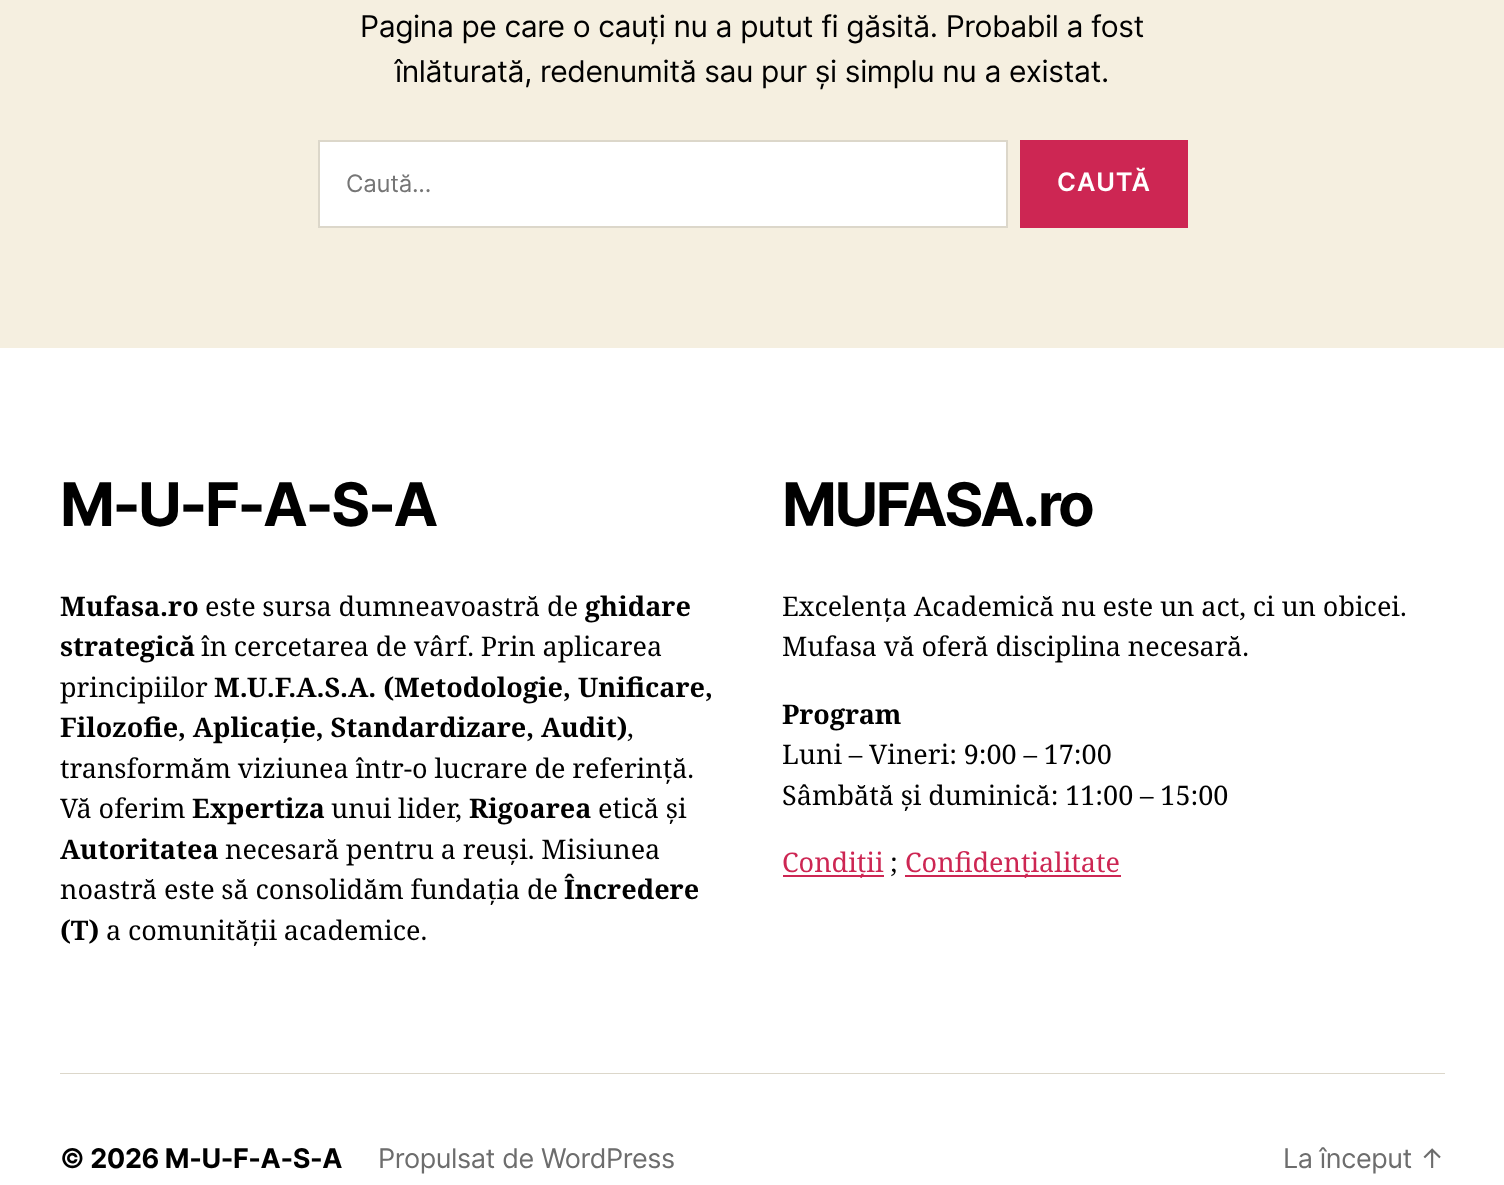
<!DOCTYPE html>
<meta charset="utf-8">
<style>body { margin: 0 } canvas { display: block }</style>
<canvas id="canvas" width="1504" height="1185"></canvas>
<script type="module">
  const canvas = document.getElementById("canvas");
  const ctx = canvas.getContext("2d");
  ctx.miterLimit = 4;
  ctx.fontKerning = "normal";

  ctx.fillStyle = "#f5efe0";
  ctx.fillRect(0, 0, 1504, 1185);
  ctx.letterSpacing = "-0.4px";
  ctx.font = "30px Inter";
  ctx.fillStyle = "#000000";
  ctx.fillText("Pagina pe care o cauți nu a putut fi găsită. Probabil a fost", 360, 37);
  ctx.fillText("înlăturată, redenumită sau pur și simplu nu a existat.", 395, 82);
  ctx.fillStyle = "#ffffff";
  ctx.beginPath();
  ctx.rect(319, 141, 688, 86);
  ctx.fill();
  ctx.strokeStyle = "#dcd7ca";
  ctx.lineWidth = 2;
  ctx.stroke();
  ctx.letterSpacing = "-0.25px";
  ctx.font = "24px Inter";
  ctx.fillStyle = "#757575";
  ctx.fillText("Caută...", 346, 192);
  ctx.fillStyle = "#cd2653";
  ctx.fillRect(1020, 140, 168, 88);
  ctx.letterSpacing = "1px";
  ctx.font = "600 25.5px Inter";
  ctx.fillStyle = "#ffffff";
  ctx.fillText("CAUTĂ", 1057, 191);
  ctx.fillRect(0, 348, 1504, 837);
  ctx.fillStyle = "#dcd7ca";
  ctx.fillRect(60, 1073, 1385, 1);
  ctx.letterSpacing = "-2.5px";
  ctx.font = "bold 60px Inter";
  ctx.fillStyle = "#000000";
  ctx.fillText("M-U-F-A-S-A", 60, 526);
  ctx.letterSpacing = "0px";
  ctx.font = "bold 27px Noto Serif";
  ctx.fillText("Mufasa.ro", 60, 616);
  ctx.wordSpacing = "-0.25px";
  ctx.font = "27px Noto Serif";
  ctx.fillText("este sursa dumneavoastră de", 205, 616);
  ctx.wordSpacing = "0px";
  ctx.font = "bold 27px Noto Serif";
  ctx.fillText("ghidare", 585, 616);
  ctx.fillText("strategică", 60, 656);
  ctx.wordSpacing = "-0.25px";
  ctx.font = "27px Noto Serif";
  ctx.fillText("în cercetarea de vârf. Prin aplicarea", 201, 656);
  ctx.wordSpacing = "0px";
  ctx.fillText("principiilor", 60, 697);
  ctx.font = "bold 27px Noto Serif";
  ctx.fillText("M.U.F.A.S.A. (Metodologie, Unificare,", 214, 697);
  ctx.wordSpacing = "-0.25px";
  ctx.fillText("Filozofie, Aplicație, Standardizare, Audit)", 60, 737);
  ctx.wordSpacing = "0px";
  ctx.font = "27px Noto Serif";
  ctx.fillText(",", 627, 737);
  ctx.wordSpacing = "-0.25px";
  ctx.fillText("transformăm viziunea într-o lucrare de referință.", 60, 778);
  ctx.fillText("Vă oferim", 60, 818);
  ctx.wordSpacing = "0px";
  ctx.font = "bold 27px Noto Serif";
  ctx.fillText("Expertiza", 192, 818);
  ctx.wordSpacing = "-0.25px";
  ctx.font = "27px Noto Serif";
  ctx.fillText("unui lider,", 331, 818);
  ctx.wordSpacing = "0px";
  ctx.font = "bold 27px Noto Serif";
  ctx.fillText("Rigoarea", 469, 818);
  ctx.wordSpacing = "-0.25px";
  ctx.font = "27px Noto Serif";
  ctx.fillText("etică și", 598, 818);
  ctx.wordSpacing = "0px";
  ctx.font = "bold 27px Noto Serif";
  ctx.fillText("Autoritatea", 60, 859);
  ctx.wordSpacing = "-0.25px";
  ctx.font = "27px Noto Serif";
  ctx.fillText("necesară pentru a reuși. Misiunea", 225, 859);
  ctx.fillText("noastră este să consolidăm fundația de", 60, 899);
  ctx.wordSpacing = "0px";
  ctx.font = "bold 27px Noto Serif";
  ctx.fillText("Încredere", 564, 899);
  ctx.fillText("(T)", 60, 940);
  ctx.wordSpacing = "-0.25px";
  ctx.font = "27px Noto Serif";
  ctx.fillText("a comunității academice.", 106, 940);
  ctx.letterSpacing = "-2.5px";
  ctx.wordSpacing = "0px";
  ctx.font = "bold 60px Inter";
  ctx.fillText("MUFASA.ro", 782, 526);
  ctx.letterSpacing = "0px";
  ctx.wordSpacing = "-0.25px";
  ctx.font = "27px Noto Serif";
  ctx.fillText("Excelența Academică nu este un act, ci un obicei.", 782, 616);
  ctx.fillText("Mufasa vă oferă disciplina necesară.", 782, 656);
  ctx.wordSpacing = "0px";
  ctx.font = "bold 27px Noto Serif";
  ctx.fillText("Program", 782, 724);
  ctx.wordSpacing = "-0.25px";
  ctx.font = "27px Noto Serif";
  ctx.fillText("Luni – Vineri: 9:00 – 17:00", 782, 764);
  ctx.fillText("Sâmbătă și duminică: 11:00 – 15:00", 782, 805);
  ctx.fillStyle = "#cd2653";
  ctx.fillRect(783, 875, 101, 2);
  ctx.wordSpacing = "0px";
  ctx.fillText("Condiții", 782, 872);
  ctx.fillStyle = "#000000";
  ctx.fillText(";", 890, 872);
  ctx.fillStyle = "#cd2653";
  ctx.fillRect(905, 875, 216, 2);
  ctx.fillText("Confidențialitate", 905, 872);
  ctx.letterSpacing = "-0.4px";
  ctx.font = "bold 27px Inter";
  ctx.fillStyle = "#000000";
  ctx.fillText("© 2026 M-U-F-A-S-A", 60, 1168);
  ctx.font = "27px Inter";
  ctx.fillStyle = "#6d6d6d";
  ctx.fillText("Propulsat de WordPress", 378, 1168);
  ctx.fillText("La început ↑", 1283, 1168);
</script>
